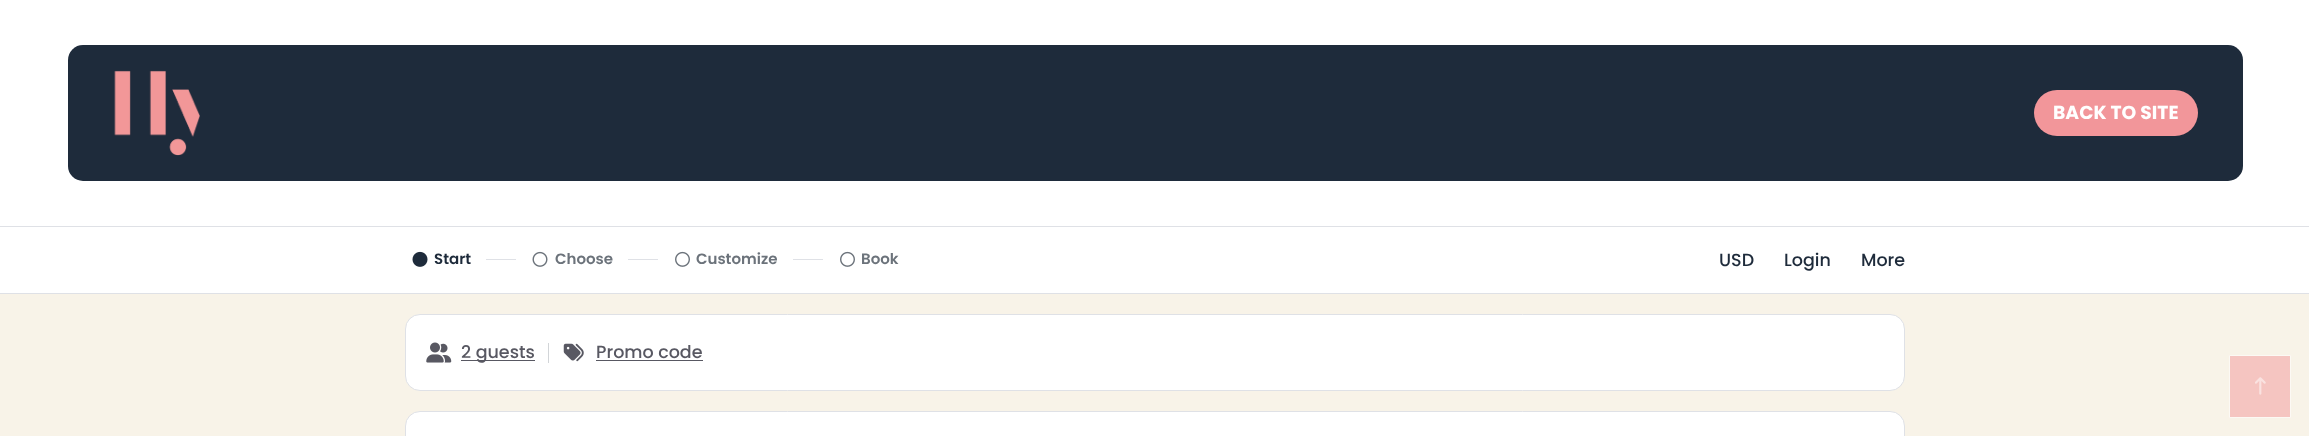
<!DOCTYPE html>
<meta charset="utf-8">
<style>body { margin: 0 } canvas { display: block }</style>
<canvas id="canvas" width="2309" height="436"></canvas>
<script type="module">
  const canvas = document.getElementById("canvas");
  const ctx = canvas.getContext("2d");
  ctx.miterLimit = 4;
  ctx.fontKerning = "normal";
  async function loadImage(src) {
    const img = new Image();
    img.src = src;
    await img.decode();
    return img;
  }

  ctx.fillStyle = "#f8f3e8";
  ctx.fillRect(0, 0, 2309, 436);
  ctx.fillStyle = "#ffffff";
  ctx.fillRect(0, 0, 2309, 293);
  ctx.fillStyle = "#dfe1e6";
  ctx.fillRect(0, 226, 2309, 1);
  ctx.fillStyle = "#1e2b3b";
  ctx.beginPath();
  ctx.roundRect(68, 45, 2175, 136, 15);
  ctx.fill();
  ctx.drawImage(await loadImage("img1.png"), 114, 70, 86, 86);
  ctx.fillStyle = "#f2969a";
  ctx.beginPath();
  ctx.roundRect(2034, 90, 164, 46, 23);
  ctx.fill();
  ctx.font = "bold 18.75px Poppins";
  ctx.fillStyle = "#ffffff";
  ctx.fillText("BACK TO SITE", 2053, 119);
  ctx.fillStyle = "#dfe1e6";
  ctx.fillRect(0, 293, 2309, 1);
  ctx.drawImage(await loadImage("img2.png"), 412, 251, 16, 16);
  ctx.font = "600 15px Poppins";
  ctx.fillStyle = "#1e2b3b";
  ctx.fillText("Start", 434, 264);
  ctx.fillStyle = "#dfe1e6";
  ctx.fillRect(486, 259, 30, 1);
  ctx.drawImage(await loadImage("img3.png"), 532, 251, 16, 16);
  ctx.fillStyle = "#6c737b";
  ctx.fillText("Choose", 555, 264);
  ctx.fillStyle = "#dfe1e6";
  ctx.fillRect(628, 259, 30, 1);
  ctx.drawImage(await loadImage("img4.png"), 675, 251, 15, 16);
  ctx.fillStyle = "#6c737b";
  ctx.fillText("Customize", 696, 264);
  ctx.fillStyle = "#dfe1e6";
  ctx.fillRect(793, 259, 30, 1);
  ctx.drawImage(await loadImage("img4.png"), 840, 251, 15, 16);
  ctx.fillStyle = "#6c737b";
  ctx.fillText("Book", 861, 264);
  ctx.font = "500 17.5px Poppins";
  ctx.fillStyle = "#1e2b3b";
  ctx.fillText("USD", 1719, 266);
  ctx.fillText("Login", 1784, 266);
  ctx.fillText("More", 1861, 266);
  ctx.fillStyle = "#ffffff";
  ctx.beginPath();
  ctx.roundRect(405.5, 314.5, 1499, 76, 14.5);
  ctx.fill();
  ctx.strokeStyle = "#dfe1e6";
  ctx.stroke();
  ctx.drawImage(await loadImage("img5.png"), 426, 342, 26, 21);
  ctx.fillStyle = "#585862";
  ctx.fillRect(461, 360, 74, 1);
  ctx.fillText("2 guests", 461, 358);
  ctx.fillStyle = "#d2d5d8";
  ctx.fillRect(548, 343, 1, 20);
  ctx.drawImage(await loadImage("img6.png"), 563, 343, 21, 19);
  ctx.fillStyle = "#585862";
  ctx.fillText("Promo code", 596, 358);
  ctx.fillRect(596, 360, 107, 1);
  ctx.fillStyle = "#ffffff";
  ctx.beginPath();
  ctx.roundRect(405.5, 411.5, 1499, 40, 14.5);
  ctx.fill();
  ctx.stroke();
  ctx.fillStyle = "#f5c5c1";
  ctx.beginPath();
  ctx.rect(2229.5, 355.5, 61, 62);
  ctx.fill();
  ctx.strokeStyle = "#fcf9f4";
  ctx.stroke();
  ctx.drawImage(await loadImage("img7.png"), 2255, 377, 11, 18);
</script>
